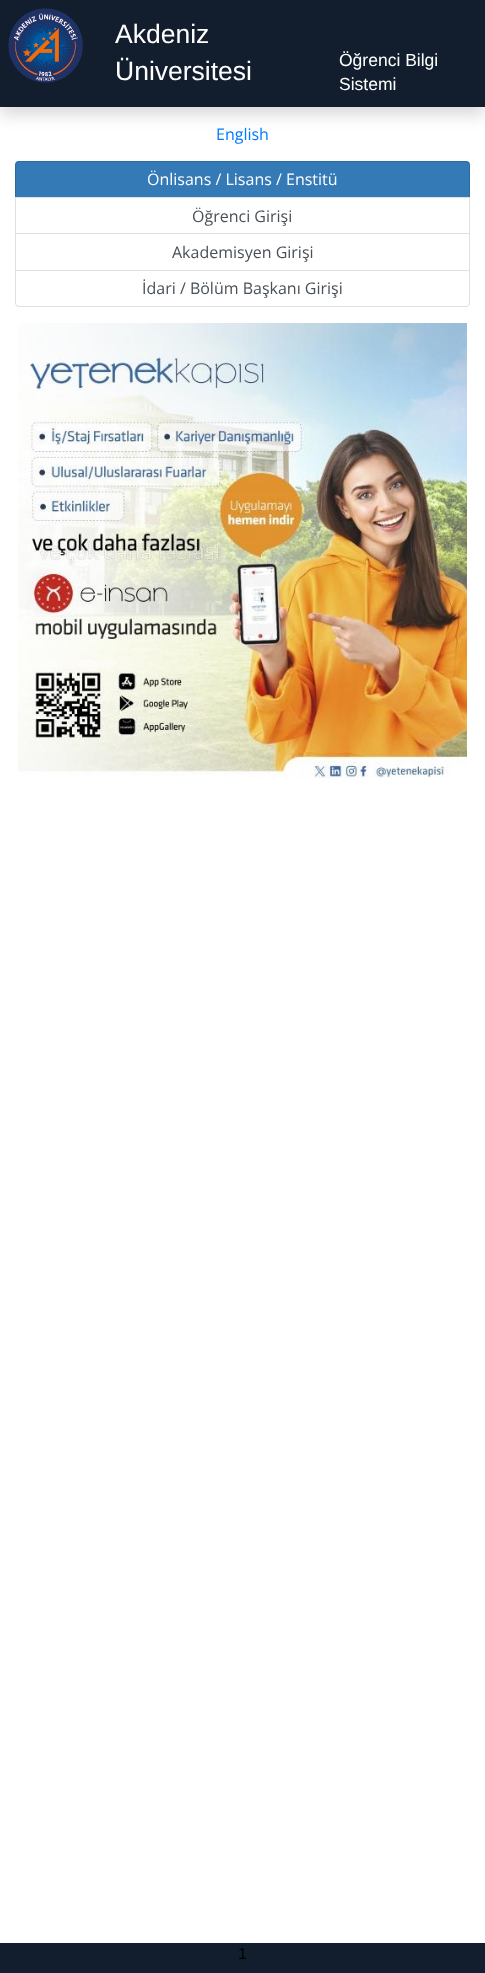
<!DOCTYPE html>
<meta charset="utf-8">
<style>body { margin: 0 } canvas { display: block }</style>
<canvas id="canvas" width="485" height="1973"></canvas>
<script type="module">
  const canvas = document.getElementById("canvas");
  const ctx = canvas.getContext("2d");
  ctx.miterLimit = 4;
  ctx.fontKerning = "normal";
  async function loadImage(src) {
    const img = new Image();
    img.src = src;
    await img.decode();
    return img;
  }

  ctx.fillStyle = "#ffffff";
  ctx.fillRect(0, 0, 485, 1973);
  ctx.fillStyle = "rgba(0, 0, 0, 0.15)";
  ctx.filter = "blur(8px)";
  ctx.beginPath();
  ctx.rect(0, 8, 485, 107);
  ctx.fill();
  ctx.filter = "none";
  ctx.fillStyle = "#121e2d";
  ctx.fillRect(0, 0, 485, 107);
  ctx.drawImage(await loadImage("img1.png"), 8, 8, 75, 75);
  ctx.font = "26.5px Liberation Sans";
  ctx.fillStyle = "#ffffff";
  ctx.fillText("Akdeniz", 115, 43);
  ctx.fillText("Üniversitesi", 115, 80);
  ctx.font = "17.5px Liberation Sans";
  ctx.fillText("Öğrenci Bilgi", 339, 66);
  ctx.fillText("Sistemi", 339, 90);
  ctx.font = "16px Open Sans";
  ctx.fillStyle = "#007bff";
  ctx.fillText("English", 216, 140);
  ctx.fillStyle = "#337ab7";
  ctx.beginPath();
  ctx.roundRect(15, 161, 455, 37, [4, 4, 0, 0]);
  ctx.fill();
  ctx.beginPath();
  ctx.roundRect(15.5, 161.5, 454, 36, [3.5, 3.5, 0, 0]);
  ctx.strokeStyle = "rgba(0, 0, 0, 0.12)";
  ctx.stroke();
  ctx.fillStyle = "#ffffff";
  ctx.fillText("Önlisans / Lisans / Enstitü", 147, 185);
  ctx.strokeStyle = "#dfdfdf";
  ctx.strokeRect(15.5, 197.5, 454, 36);
  ctx.fillStyle = "#495057";
  ctx.fillText("Öğrenci Girişi", 192, 222);
  ctx.strokeRect(15.5, 233.5, 454, 37);
  ctx.fillText("Akademisyen Girişi", 172, 258);
  ctx.fillStyle = "#ffffff";
  ctx.beginPath();
  ctx.roundRect(15.5, 270.5, 454, 36, [0, 0, 3.5, 3.5]);
  ctx.fill();
  ctx.stroke();
  ctx.fillStyle = "#495057";
  ctx.fillText("İdari / Bölüm Başkanı Girişi", 142, 294);
  ctx.drawImage(await loadImage("img2.png"), 18, 323, 449, 455);
  ctx.fillStyle = "#121e2d";
  ctx.fillRect(0, 1943, 485, 30);
  ctx.font = "16px Liberation Sans";
  ctx.fillStyle = "#000000";
  ctx.fillText("1", 238, 1959);
</script>
